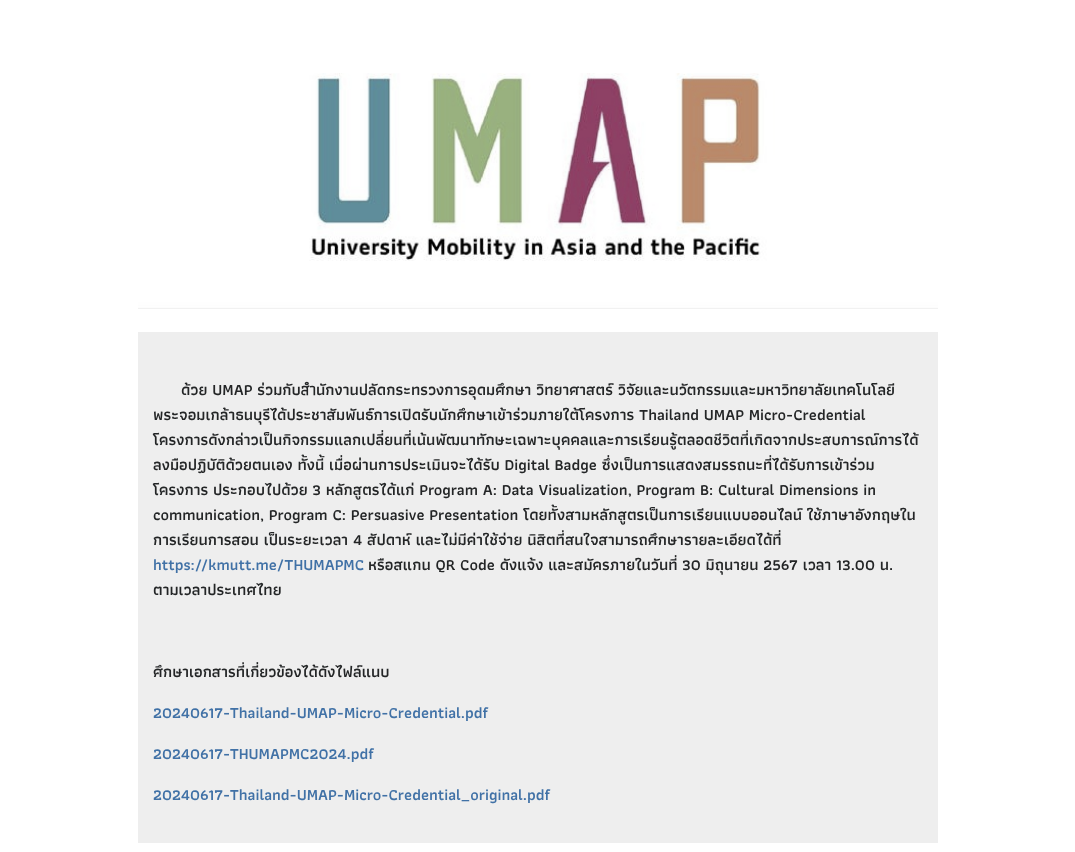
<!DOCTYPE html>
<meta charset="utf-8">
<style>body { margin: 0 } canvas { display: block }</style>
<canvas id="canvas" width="1075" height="852"></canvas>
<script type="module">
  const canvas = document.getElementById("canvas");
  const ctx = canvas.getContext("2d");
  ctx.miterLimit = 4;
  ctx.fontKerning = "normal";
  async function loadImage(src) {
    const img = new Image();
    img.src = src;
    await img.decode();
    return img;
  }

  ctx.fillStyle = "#ffffff";
  ctx.fillRect(0, 0, 1075, 852);
  ctx.drawImage(await loadImage("img1.png"), 138, 73, 800, 236);
  ctx.fillStyle = "#eeeeee";
  ctx.fillRect(138, 332, 800, 511);
  ctx.font = "600 16px Athiti";
  ctx.fillStyle = "#232526";
  ctx.fillText("ด้วย UMAP ร่วมกับสำนักงานปลัดกระทรวงการอุดมศึกษา วิทยาศาสตร์ วิจัยและนวัตกรรมและมหาวิทยาลัยเทคโนโลยี", 181, 395);
  ctx.fillText("พระจอมเกล้าธนบุรีได้ประชาสัมพันธ์การเปิดรับนักศึกษาเข้าร่วมภายใต้โครงการ Thailand UMAP Micro-Credential", 153, 420);
  ctx.fillText("โครงการดังกล่าวเป็นกิจกรรมแลกเปลี่ยนที่เน้นพัฒนาทักษะเฉพาะบุคคลและการเรียนรู้ตลอดชีวิตที่เกิดจากประสบการณ์การได้", 153, 445);
  ctx.fillText("ลงมือปฏิบัติด้วยตนเอง ทั้งนี้ เมื่อผ่านการประเมินจะได้รับ Digital Badge ซึ่งเป็นการแสดงสมรรถนะที่ได้รับการเข้าร่วม", 153, 470);
  ctx.fillText("โครงการ ประกอบไปด้วย 3 หลักสูตรได้แก่ Program A: Data Visualization, Program B: Cultural Dimensions in", 153, 495);
  ctx.fillText("communication, Program C: Persuasive Presentation โดยทั้งสามหลักสูตรเป็นการเรียนแบบออนไลน์ ใช้ภาษาอังกฤษใน", 153, 520);
  ctx.fillText("การเรียนการสอน เป็นระยะเวลา 4 สัปดาห์ และไม่มีค่าใช้จ่าย นิสิตที่สนใจสามารถศึกษารายละเอียดได้ที่", 153, 545);
  ctx.fillStyle = "#4071a6";
  ctx.fillText("https://kmutt.me/THUMAPMC", 153, 570);
  ctx.fillStyle = "#232526";
  ctx.fillText("หรือสแกน QR Code ดังแจ้ง และสมัครภายในวันที่ 30 มิถุนายน 2567 เวลา 13.00 น.", 368, 570);
  ctx.fillText("ตามเวลาประเทศไทย", 153, 595);
  ctx.fillText("ศึกษาเอกสารที่เกี่ยวข้องได้ดังไฟล์แนบ", 153, 677);
  ctx.fillStyle = "#4071a6";
  ctx.fillText("20240617-Thailand-UMAP-Micro-Credential.pdf", 153, 718);
  ctx.fillText("20240617-THUMAPMC2024.pdf", 153, 759);
  ctx.fillText("20240617-Thailand-UMAP-Micro-Credential_original.pdf", 153, 800);
</script>
